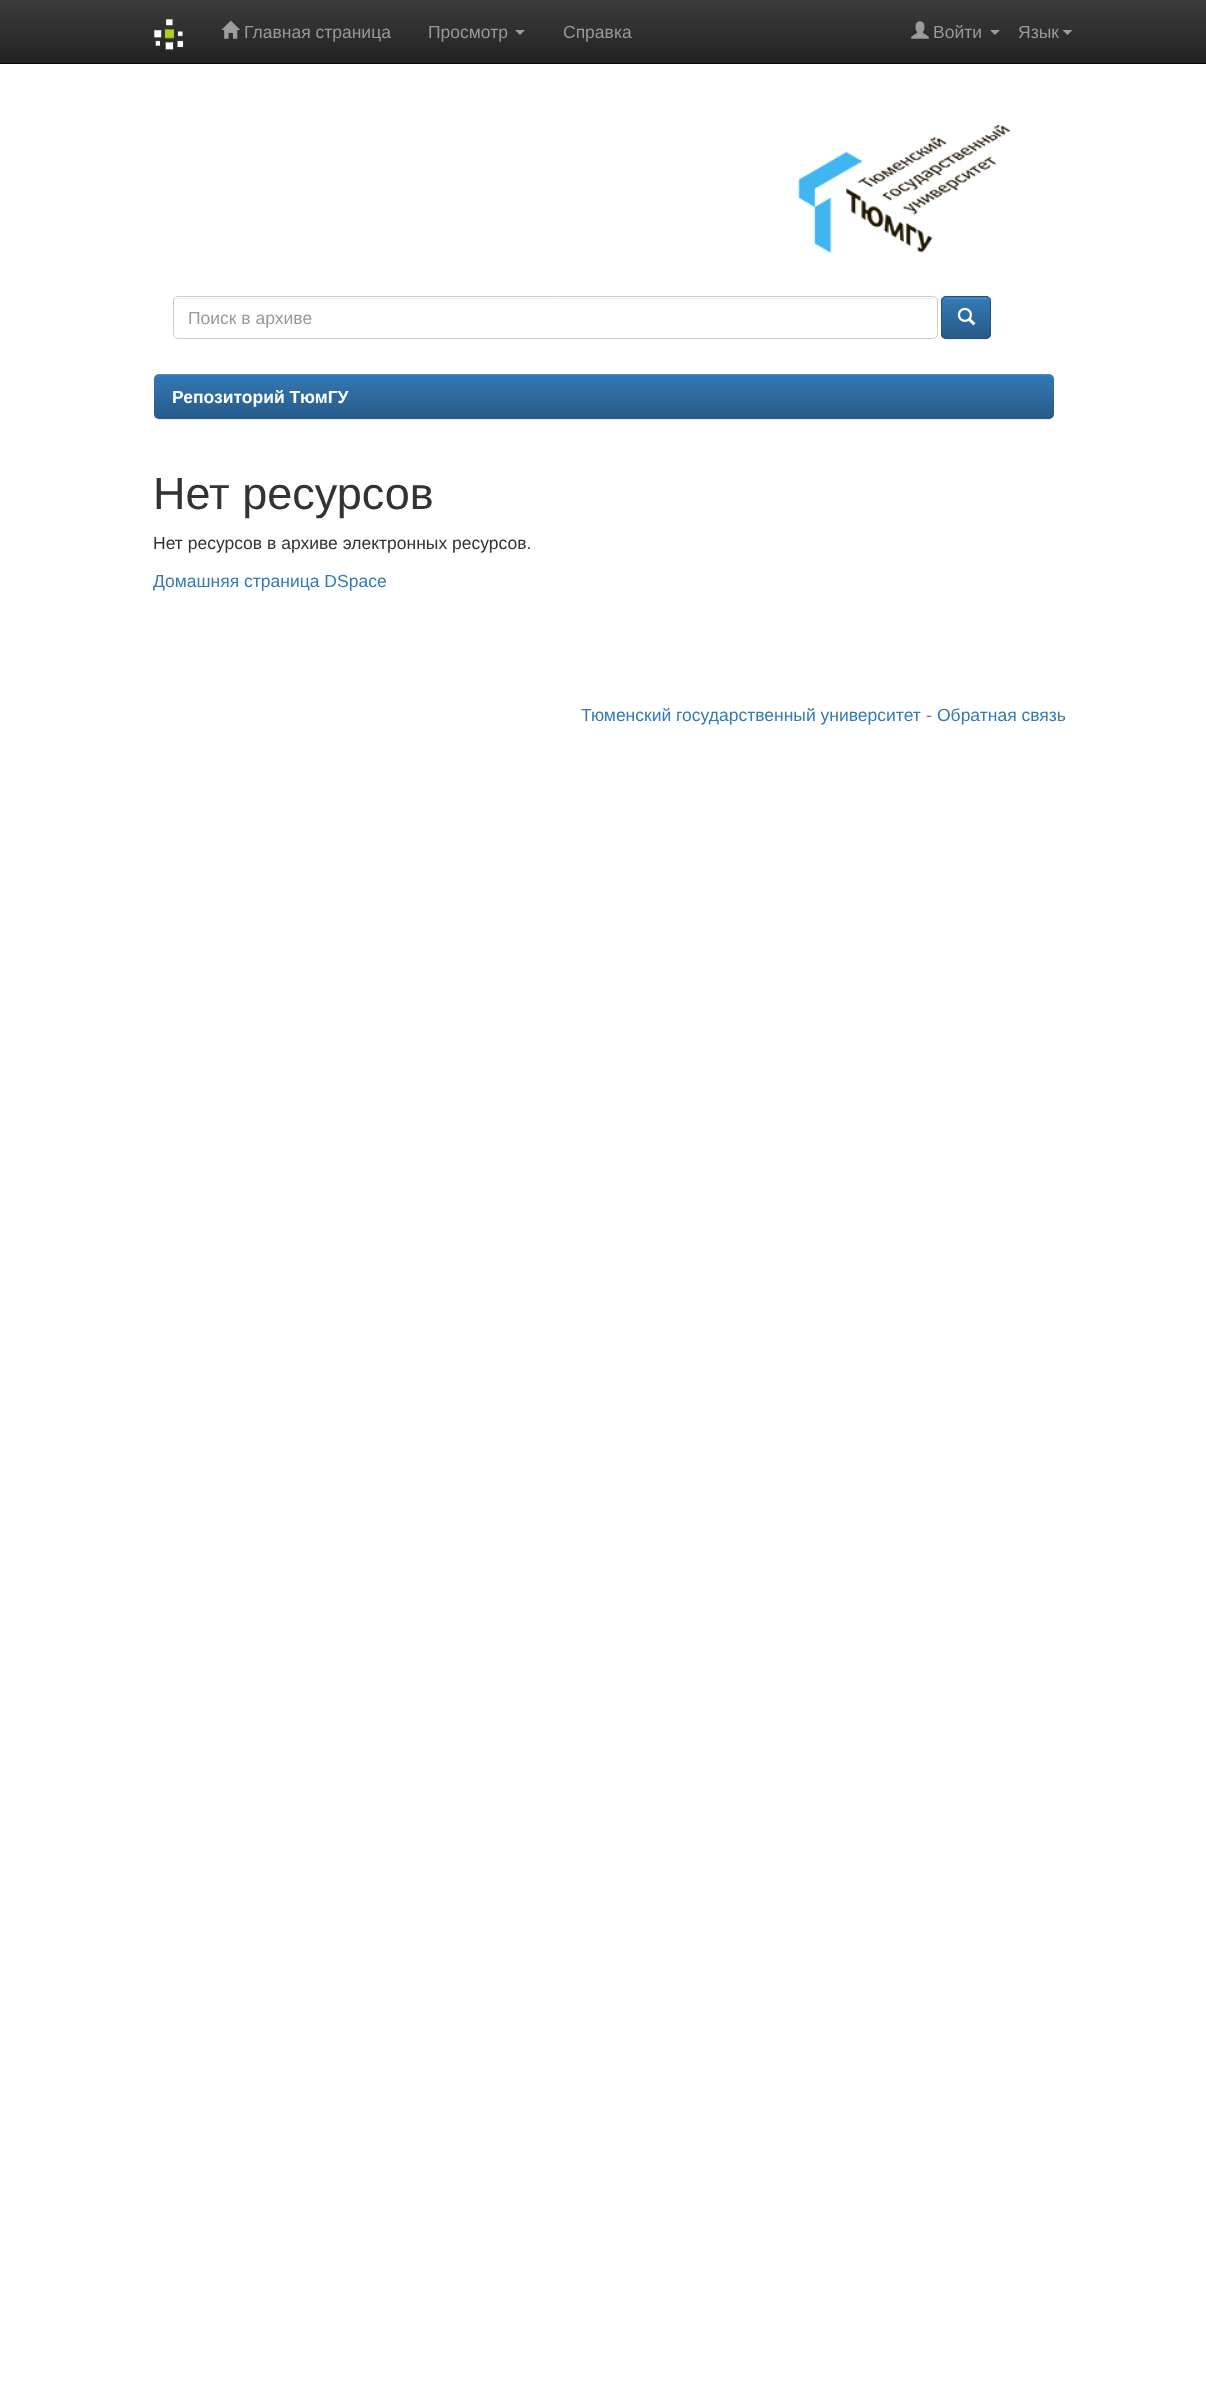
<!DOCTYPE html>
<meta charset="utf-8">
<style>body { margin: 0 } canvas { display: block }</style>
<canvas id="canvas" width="1206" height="2403"></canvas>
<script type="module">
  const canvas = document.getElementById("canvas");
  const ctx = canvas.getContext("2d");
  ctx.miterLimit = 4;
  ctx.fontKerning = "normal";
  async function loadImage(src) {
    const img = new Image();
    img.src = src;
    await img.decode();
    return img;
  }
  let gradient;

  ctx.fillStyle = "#ffffff";
  ctx.fillRect(0, 0, 1206, 2403);
  gradient = ctx.createLinearGradient(603, 0, 603, 63);
  gradient.addColorStop(0, "#3c3c3c");
  gradient.addColorStop(1, "#222222");
  ctx.fillStyle = gradient;
  ctx.fillRect(0, 0, 1206, 63);
  ctx.fillStyle = "#080808";
  ctx.fillRect(0, 63, 1206, 1);
  ctx.drawImage(await loadImage("img1.png"), 154, 19, 30, 31);
  ctx.drawImage(await loadImage("img2.png"), 221, 20, 19, 19);
  ctx.font = "17.5px Liberation Sans";
  ctx.fillStyle = "#999999";
  ctx.fillText("Главная страница", 244, 38);
  ctx.fillText("Просмотр", 428, 38);
  ctx.fillStyle = "#9d9d9d";
  ctx.beginPath();
  ctx.moveTo(515, 30);
  ctx.lineTo(525, 30);
  ctx.lineTo(520, 35);
  ctx.closePath();
  ctx.fill();
  ctx.fillStyle = "#999999";
  ctx.fillText("Справка", 563, 38);
  ctx.drawImage(await loadImage("img3.png"), 911, 21, 18, 18);
  ctx.fillText("Войти", 933, 38);
  ctx.fillStyle = "#9d9d9d";
  ctx.beginPath();
  ctx.moveTo(990, 30);
  ctx.lineTo(1000, 30);
  ctx.lineTo(995, 35);
  ctx.closePath();
  ctx.fill();
  ctx.fillStyle = "#999999";
  ctx.fillText("Язык", 1018, 38);
  ctx.fillStyle = "#9d9d9d";
  ctx.beginPath();
  ctx.moveTo(1062.5, 30);
  ctx.lineTo(1072.5, 30);
  ctx.lineTo(1067.5, 35);
  ctx.closePath();
  ctx.fill();
  ctx.drawImage(await loadImage("img4.png"), 798, 125, 212, 128);
  ctx.fillStyle = "#ececec";
  ctx.beginPath();
  ctx.moveTo(178, 299);
  ctx.lineTo(933, 299);
  ctx.lineTo(936, 300);
  ctx.bezierCurveTo(935, 299, 934, 298, 932, 298);
  ctx.lineTo(178, 298);
  ctx.bezierCurveTo(176, 298, 175, 299, 174, 300);
  ctx.bezierCurveTo(175, 299, 176, 299, 178, 299);
  ctx.closePath();
  ctx.fill();
  ctx.beginPath();
  ctx.roundRect(173.5, 296.5, 764, 42, 4.5);
  ctx.strokeStyle = "#cccccc";
  ctx.stroke();
  ctx.fillStyle = "#999999";
  ctx.fillText("Поиск в архиве", 188, 324);
  ctx.fillStyle = "rgba(0, 0, 0, 0.07)";
  ctx.filter = "blur(0.5px)";
  ctx.beginPath();
  ctx.roundRect(941, 298, 50, 42, 5);
  ctx.fill();
  ctx.filter = "none";
  ctx.fillStyle = "#337ab7";
  ctx.beginPath();
  ctx.roundRect(941, 296, 50, 43, 5);
  ctx.fill();
  ctx.save();
  ctx.beginPath();
  ctx.roundRect(941, 296, 50, 43, 5);
  ctx.clip();
  gradient = ctx.createLinearGradient(966, 298, 966, 338);
  gradient.addColorStop(0, "#337ab7");
  gradient.addColorStop(1, "#265a88");
  ctx.fillStyle = gradient;
  ctx.fillRect(941, 298, 50, 40);
  ctx.restore();
  ctx.fillStyle = "#528ec1";
  ctx.beginPath();
  ctx.moveTo(946, 299);
  ctx.lineTo(986, 299);
  ctx.bezierCurveTo(988, 299, 990, 300, 990, 302);
  ctx.bezierCurveTo(990, 300, 988, 298, 986, 298);
  ctx.lineTo(947, 298);
  ctx.bezierCurveTo(946, 298, 945, 299, 944, 299);
  ctx.closePath();
  ctx.fill();
  ctx.beginPath();
  ctx.roundRect(941.5, 296.5, 49, 42, 4.5);
  ctx.strokeStyle = "#245580";
  ctx.stroke();
  ctx.drawImage(await loadImage("img5.png"), 957, 307, 19, 19);
  ctx.fillStyle = "rgba(0, 0, 0, 0.07)";
  ctx.filter = "blur(0.5px)";
  ctx.beginPath();
  ctx.roundRect(154, 375, 900, 45, 5);
  ctx.fill();
  ctx.filter = "none";
  gradient = ctx.createLinearGradient(604, 374, 604, 419);
  gradient.addColorStop(0, "#337ab7");
  gradient.addColorStop(1, "#265a88");
  ctx.fillStyle = gradient;
  ctx.beginPath();
  ctx.roundRect(154, 374, 900, 45, 5);
  ctx.fill();
  ctx.fillStyle = "rgba(255, 255, 255, 0.15)";
  ctx.beginPath();
  ctx.moveTo(159, 375);
  ctx.lineTo(1049, 375);
  ctx.bezierCurveTo(1052, 375, 1054, 377, 1054, 380);
  ctx.bezierCurveTo(1054, 377, 1052, 374, 1049, 374);
  ctx.lineTo(159, 374);
  ctx.bezierCurveTo(156, 374, 154, 377, 154, 380);
  ctx.bezierCurveTo(154, 377, 156, 375, 159, 375);
  ctx.closePath();
  ctx.fill();
  ctx.font = "bold 17.5px Liberation Sans";
  ctx.fillStyle = "#ffffff";
  ctx.fillText("Репозиторий ТюмГУ", 172, 403);
  ctx.font = "45px Liberation Sans";
  ctx.fillStyle = "#333333";
  ctx.fillText("Нет ресурсов", 153, 509);
  ctx.font = "17.5px Liberation Sans";
  ctx.fillText("Нет ресурсов в архиве электронных ресурсов.", 153, 549);
  ctx.fillStyle = "#337ab7";
  ctx.fillText("Домашняя страница DSpace", 153, 587);
  ctx.fillText("Тюменский государственный университет", 581, 721);
  ctx.fillStyle = "#777777";
  ctx.fillText("-", 926, 721);
  ctx.fillStyle = "#337ab7";
  ctx.fillText("Обратная связь", 937, 721);
</script>
